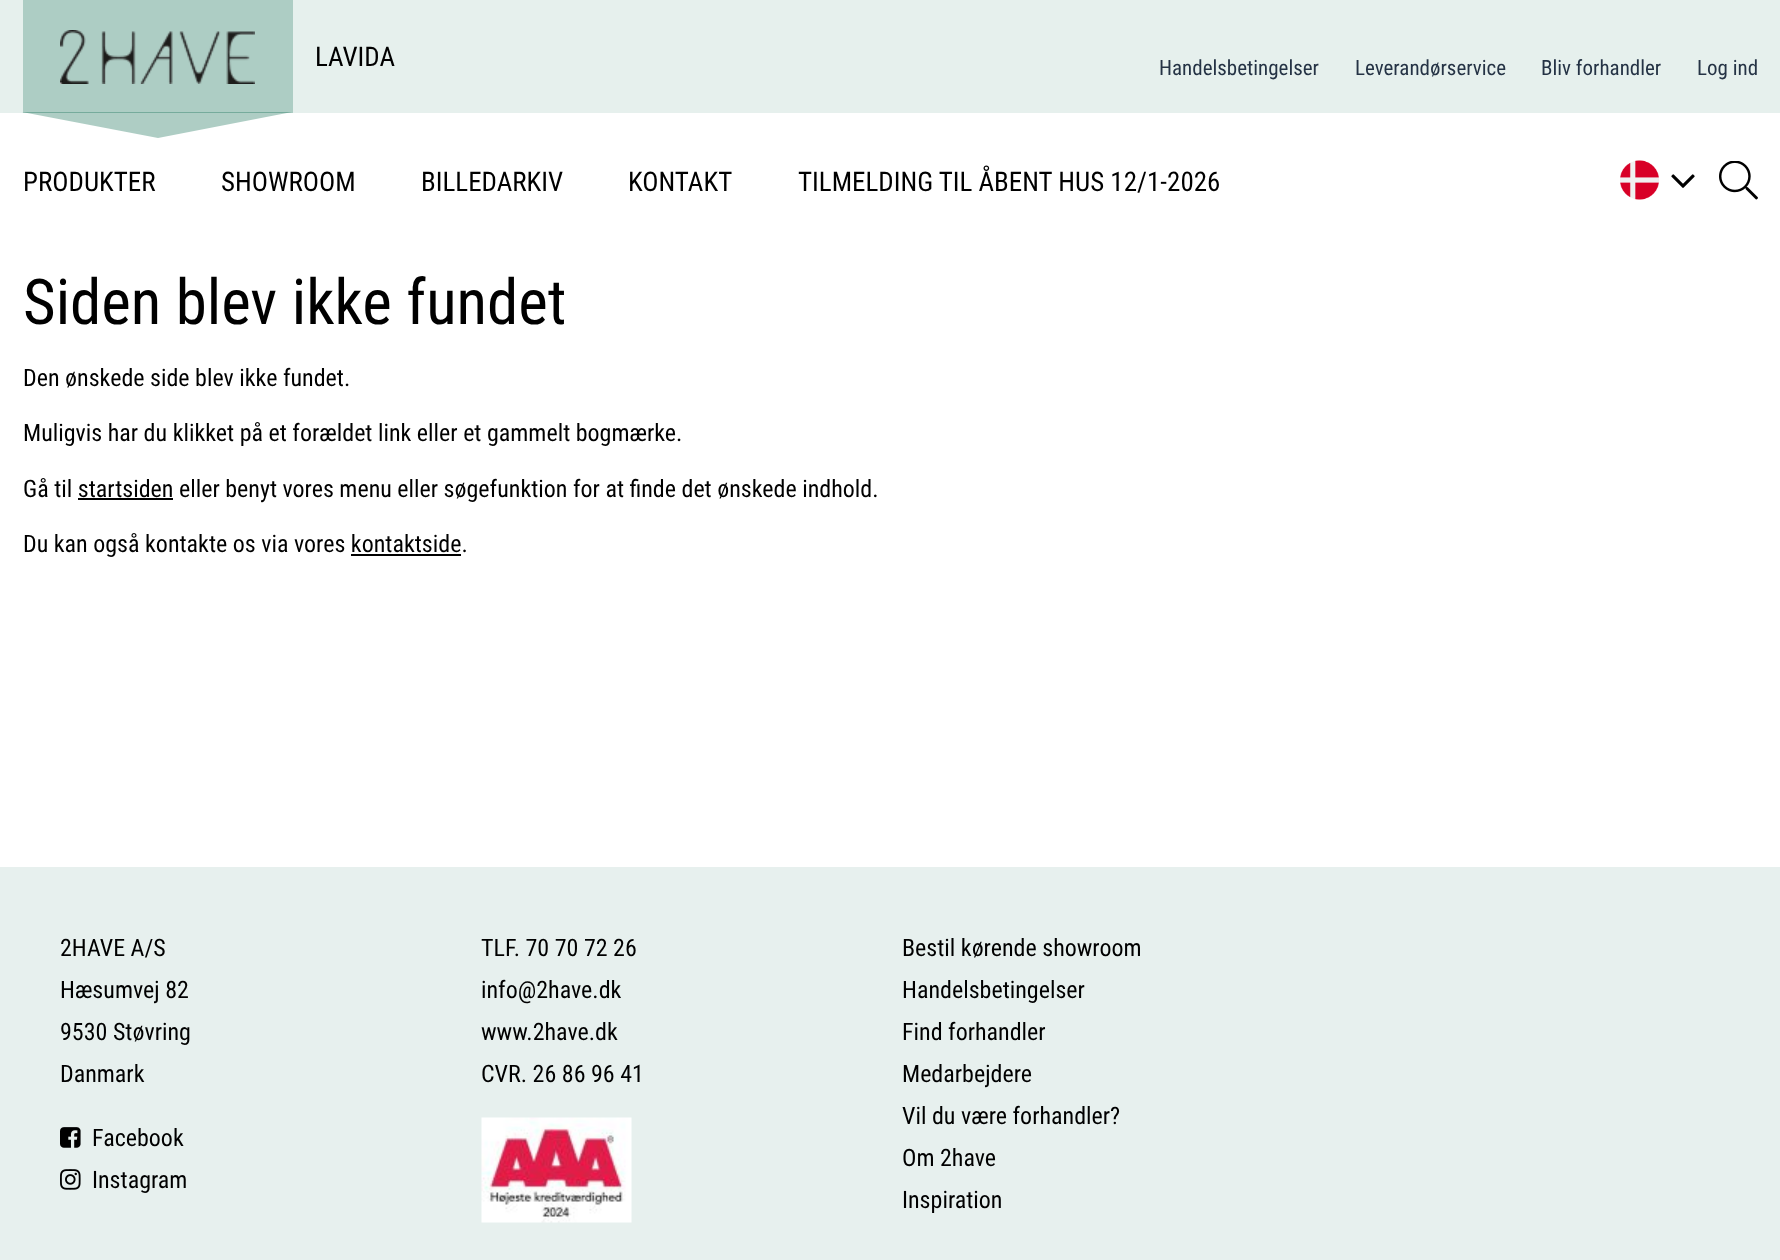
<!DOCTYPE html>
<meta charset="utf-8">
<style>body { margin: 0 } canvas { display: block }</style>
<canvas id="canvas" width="1780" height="1260"></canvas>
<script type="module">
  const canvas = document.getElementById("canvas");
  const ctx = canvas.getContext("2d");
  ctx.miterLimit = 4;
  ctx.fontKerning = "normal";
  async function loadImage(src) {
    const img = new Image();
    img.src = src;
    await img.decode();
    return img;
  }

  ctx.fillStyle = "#ffffff";
  ctx.fillRect(0, 0, 1780, 1260);
  ctx.fillStyle = "#e6f0ed";
  ctx.fillRect(0, 0, 1780, 113);
  ctx.fillStyle = "#adcdc4";
  ctx.fillRect(23, 0, 270, 113);
  ctx.drawImage(await loadImage("img1.png"), 60, 30, 195, 54);
  ctx.fillStyle = "rgba(2, 100, 73, 0.32)";
  ctx.beginPath();
  ctx.moveTo(22, 112);
  ctx.lineTo(292, 112);
  ctx.lineTo(158, 138);
  ctx.closePath();
  ctx.fill();
  ctx.font = "27px Roboto Condensed";
  ctx.fillStyle = "#000000";
  ctx.fillText("LAVIDA", 315, 66);
  ctx.font = "21px Roboto Condensed";
  ctx.fillStyle = "#253345";
  ctx.fillText("Handelsbetingelser", 1159, 75);
  ctx.fillText("Leverandørservice", 1355, 75);
  ctx.fillText("Bliv forhandler", 1541, 75);
  ctx.fillText("Log ind", 1697, 75);
  ctx.font = "27px Roboto Condensed";
  ctx.fillStyle = "#000000";
  ctx.fillText("PRODUKTER", 23, 191);
  ctx.fillText("SHOWROOM", 221, 191);
  ctx.fillText("BILLEDARKIV", 421, 191);
  ctx.fillText("KONTAKT", 628, 191);
  ctx.fillText("TILMELDING TIL ÅBENT HUS 12/1-2026", 798, 191);
  ctx.drawImage(await loadImage("img2.png"), 1620, 160, 39, 40);
  ctx.drawImage(await loadImage("img3.png"), 1671, 174, 24, 14);
  ctx.drawImage(await loadImage("img4.png"), 1719, 161, 39, 39);
  ctx.font = "63px Roboto Condensed";
  ctx.fillText("Siden blev ikke fundet", 23, 324);
  ctx.font = "24px Roboto Condensed";
  ctx.fillText("Den ønskede side blev ikke fundet.", 23, 386);
  ctx.fillText("Muligvis har du klikket på et forældet link eller et gammelt bogmærke.", 23, 441);
  ctx.fillText("Gå til startsiden eller benyt vores menu eller søgefunktion for at finde det ønskede indhold.", 23, 497);
  ctx.fillRect(78, 498, 95, 2);
  ctx.fillText("Du kan også kontakte os via vores kontaktside.", 23, 552);
  ctx.fillRect(351, 554, 110, 2);
  ctx.fillStyle = "#e7f0ee";
  ctx.fillRect(0, 867, 1780, 393);
  ctx.fillStyle = "#000000";
  ctx.fillText("2HAVE A/S", 60, 956);
  ctx.fillText("Hæsumvej 82", 60, 998);
  ctx.fillText("9530 Støvring", 60, 1040);
  ctx.fillText("Danmark", 60, 1082);
  ctx.drawImage(await loadImage("img5.png"), 60, 1127, 21, 21);
  ctx.fillText("Facebook", 92, 1146);
  ctx.drawImage(await loadImage("img6.png"), 60, 1169, 21, 21);
  ctx.fillText("Instagram", 92, 1188);
  ctx.fillText("TLF. 70 70 72 26", 481, 956);
  ctx.fillText("info@2have.dk", 481, 998);
  ctx.fillText("www.2have.dk", 481, 1040);
  ctx.fillText("CVR. 26 86 96 41", 481, 1082);
  ctx.drawImage(await loadImage("img7.png"), 481, 1117, 151, 106);
  ctx.fillText("Bestil kørende showroom", 902, 956);
  ctx.fillText("Handelsbetingelser", 902, 998);
  ctx.fillText("Find forhandler", 902, 1040);
  ctx.fillText("Medarbejdere", 902, 1082);
  ctx.fillText("Vil du være forhandler?", 902, 1124);
  ctx.fillText("Om 2have", 902, 1166);
  ctx.fillText("Inspiration", 902, 1208);
</script>
